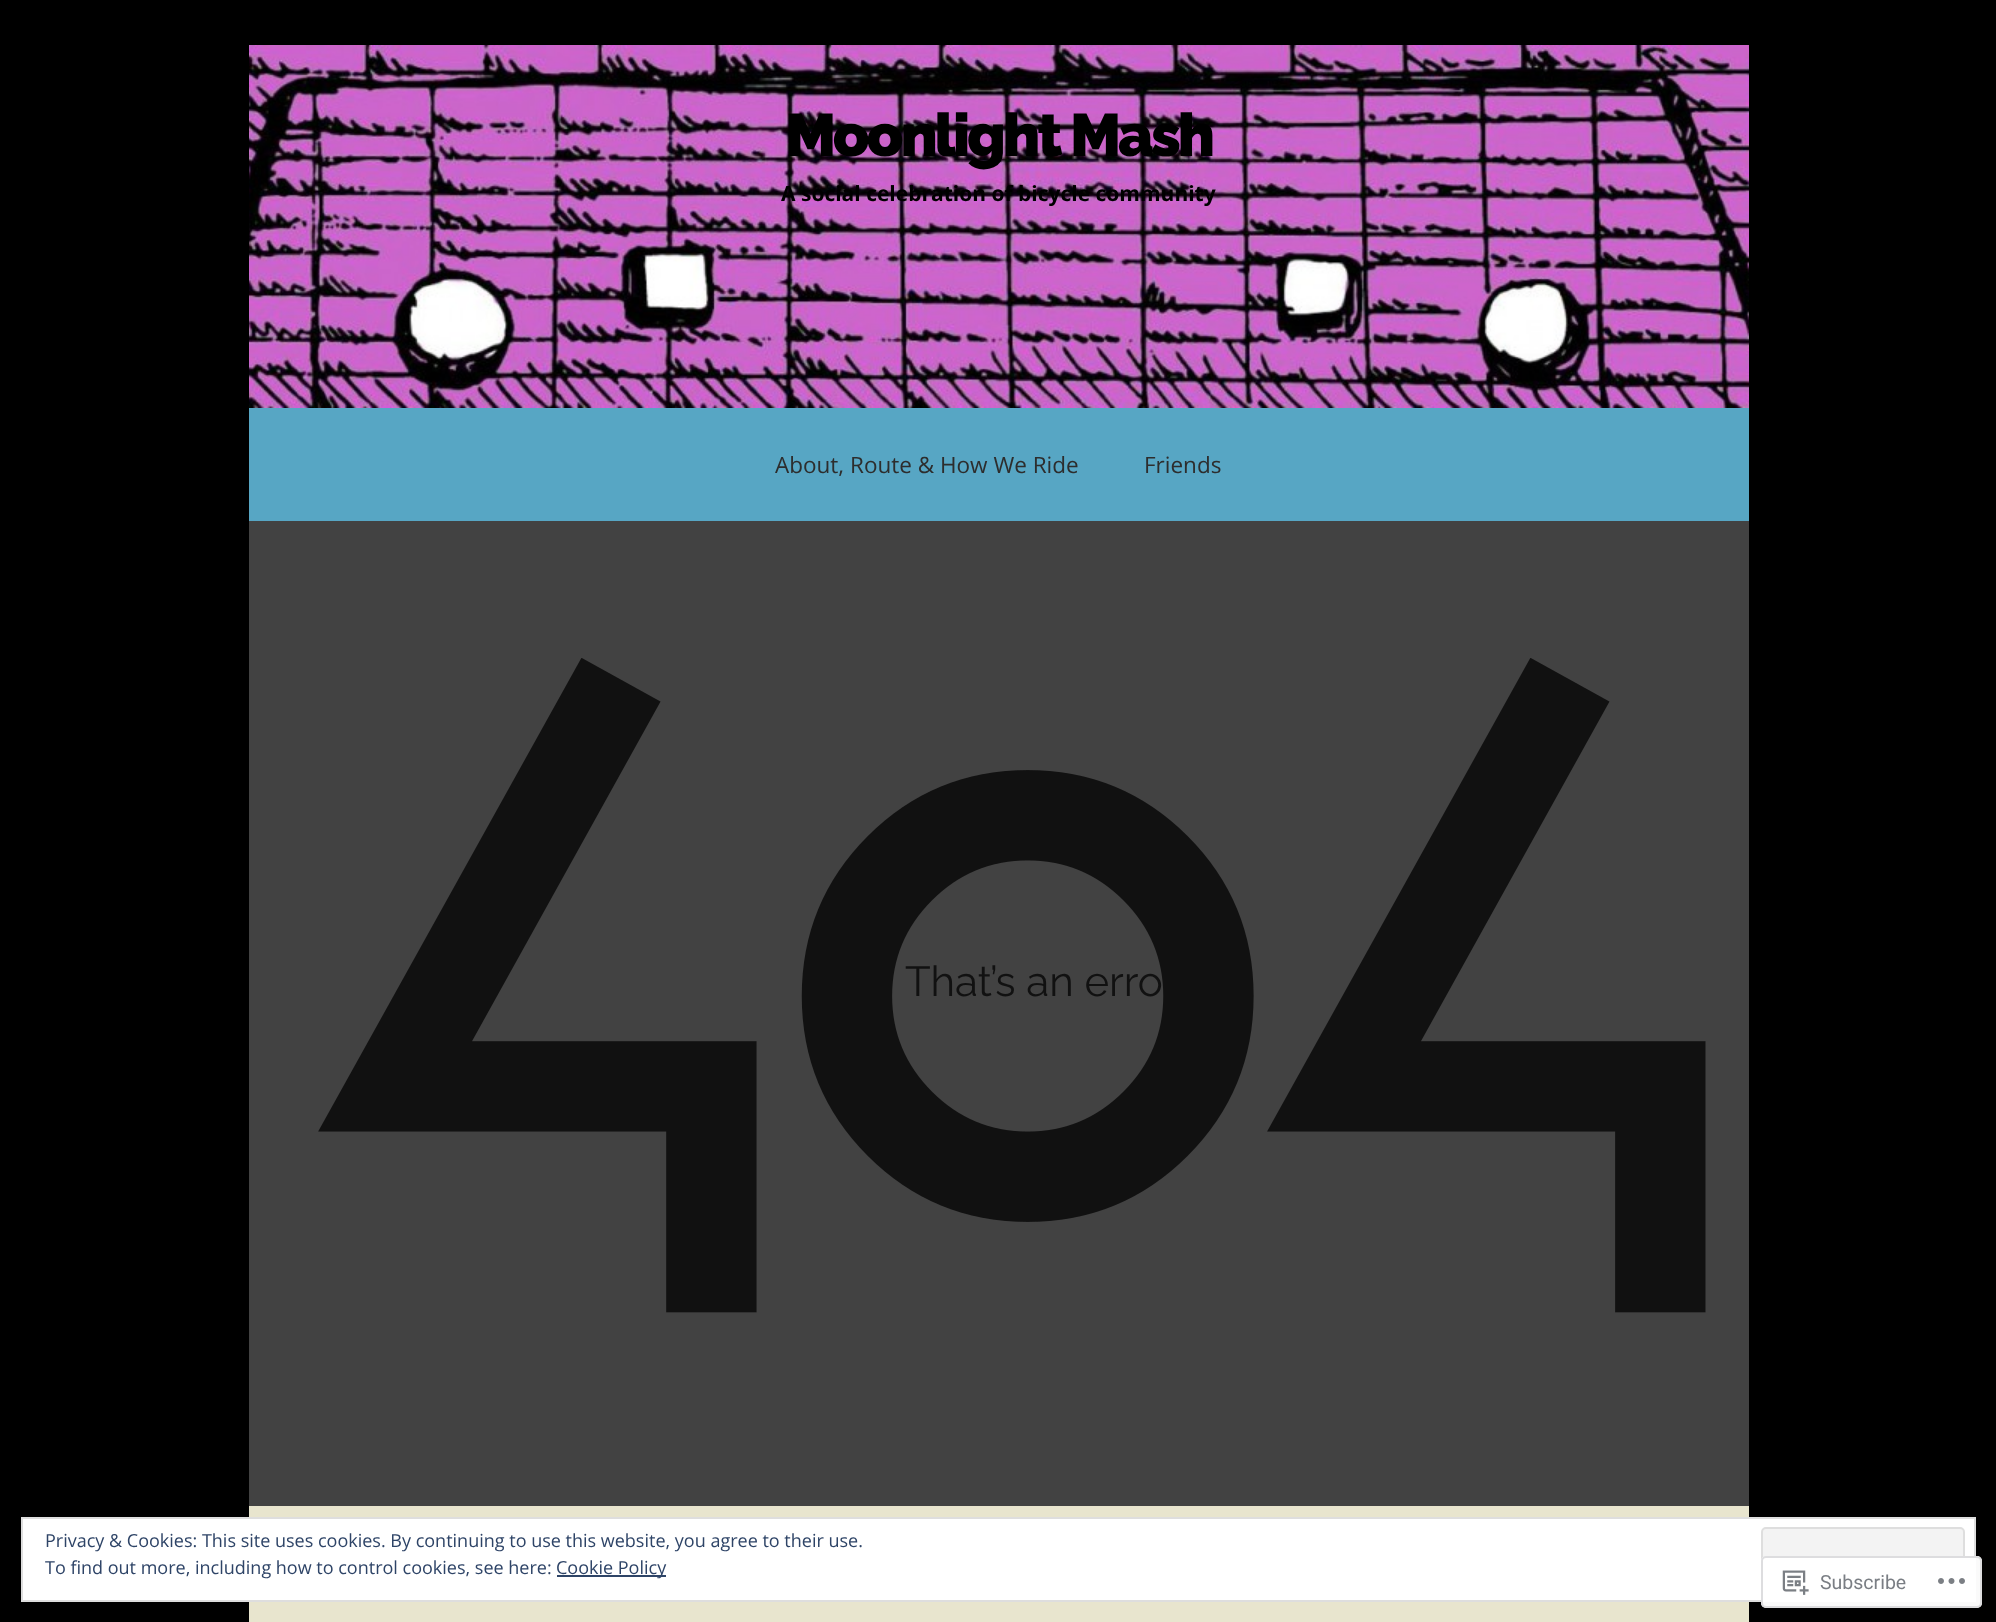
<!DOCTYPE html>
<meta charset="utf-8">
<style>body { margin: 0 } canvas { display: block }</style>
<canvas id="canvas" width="1996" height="1622"></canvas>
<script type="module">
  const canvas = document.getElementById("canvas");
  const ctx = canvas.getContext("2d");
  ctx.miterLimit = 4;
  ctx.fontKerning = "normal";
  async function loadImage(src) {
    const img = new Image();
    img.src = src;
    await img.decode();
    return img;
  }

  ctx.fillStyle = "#000000";
  ctx.fillRect(0, 0, 1996, 1622);
  ctx.drawImage(await loadImage("img1.png"), 249, 45, 1500, 363);
  ctx.letterSpacing = "-3px";
  ctx.font = "900 60px Raleway";
  ctx.fillText("Moonlight Mash", 785, 156);
  ctx.letterSpacing = "0px";
  ctx.font = "bold 21px Open Sans";
  ctx.fillText("A social celebration of bicycle community", 781, 201);
  ctx.fillStyle = "#57a6c4";
  ctx.fillRect(249, 408, 1500, 113);
  ctx.font = "22.5px Open Sans";
  ctx.fillStyle = "#2d2d2d";
  ctx.fillText("About, Route & How We Ride", 775, 473);
  ctx.fillText("Friends", 1144, 473);
  ctx.fillStyle = "#424242";
  ctx.fillRect(249, 521, 1500, 985);
  ctx.font = "42px Raleway";
  ctx.fillStyle = "#111111";
  ctx.fillText("That’s an erro", 905, 996);
  ctx.drawImage(await loadImage("img2.png"), 318, 658, 1388, 655);
  ctx.fillStyle = "#e8e5ce";
  ctx.fillRect(249, 1506, 1500, 116);
  ctx.fillStyle = "#ffffff";
  ctx.beginPath();
  ctx.rect(22, 1518, 1953, 83);
  ctx.fill();
  ctx.strokeStyle = "#dedede";
  ctx.lineWidth = 2;
  ctx.stroke();
  ctx.font = "18px Open Sans";
  ctx.fillStyle = "#2e4467";
  ctx.fillText("Privacy & Cookies: This site uses cookies. By continuing to use this website, you agree to their use.", 45, 1547);
  ctx.fillStyle = "#f3f3f3";
  ctx.beginPath();
  ctx.roundRect(1762, 1528, 202, 63, 4);
  ctx.fill();
  ctx.stroke();
  ctx.fillStyle = "#2e4467";
  ctx.fillText("To find out more, including how to control cookies, see here:", 45, 1574);
  ctx.fillRect(557, 1575, 109, 2);
  ctx.fillText("Cookie Policy", 556, 1574);
  ctx.fillStyle = "rgba(255, 255, 255, 0.98)";
  ctx.beginPath();
  ctx.roundRect(1761, 1556, 221, 52, 5);
  ctx.fill();
  ctx.beginPath();
  ctx.roundRect(1762, 1557, 219, 50, 4);
  ctx.strokeStyle = "rgba(220, 220, 222, 0.98)";
  ctx.stroke();
  ctx.drawImage(await loadImage("img3.png"), 1782, 1570, 27, 25);
  ctx.font = "19.5px Roboto";
  ctx.fillStyle = "#7a7e84";
  ctx.fillText("Subscribe", 1820, 1589);
  ctx.drawImage(await loadImage("img4.png"), 1938, 1578, 27, 6);
</script>
